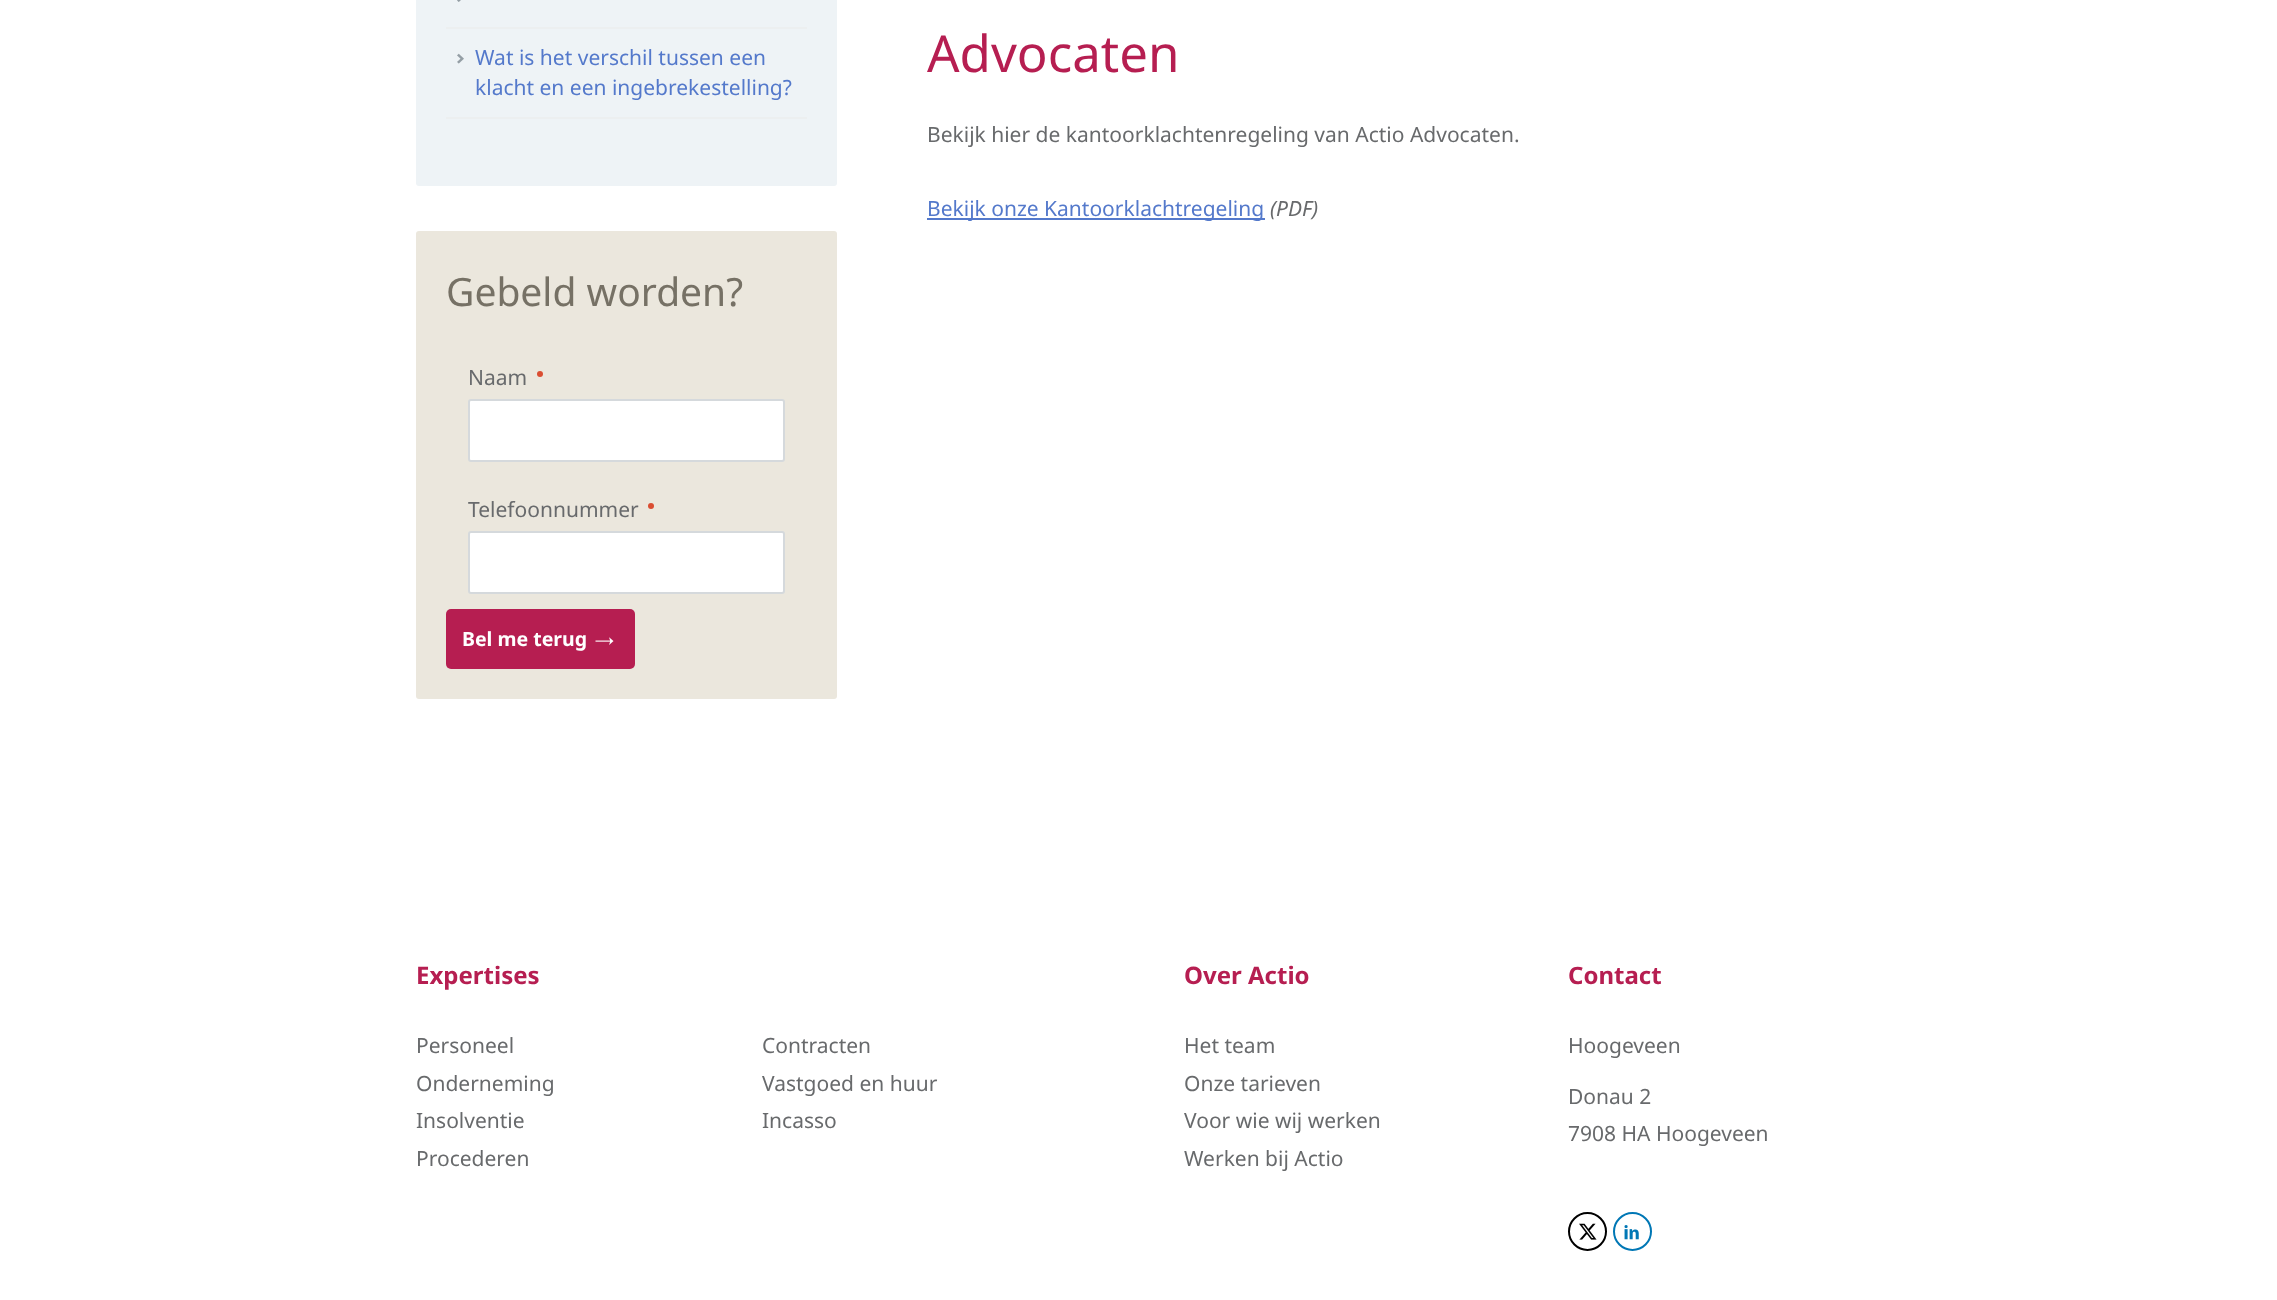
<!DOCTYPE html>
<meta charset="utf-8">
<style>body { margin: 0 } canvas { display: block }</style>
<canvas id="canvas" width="2277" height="1300"></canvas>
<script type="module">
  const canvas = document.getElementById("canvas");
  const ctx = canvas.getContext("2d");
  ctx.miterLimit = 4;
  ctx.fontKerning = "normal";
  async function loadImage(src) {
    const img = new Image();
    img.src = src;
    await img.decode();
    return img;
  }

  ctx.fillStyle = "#ffffff";
  ctx.fillRect(0, 0, 2277, 1300);
  ctx.fillStyle = "#eef3f6";
  ctx.beginPath();
  ctx.roundRect(416, -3, 421, 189, 3);
  ctx.fill();
  ctx.fillStyle = "#eceff0";
  ctx.fillRect(446, 27, 361, 2);
  ctx.drawImage(await loadImage("img1.png"), 457, 0, 4, 2);
  ctx.fillRect(446, 117, 361, 2);
  ctx.drawImage(await loadImage("img2.png"), 457, 53, 7, 11);
  ctx.font = "21px Noto Sans";
  ctx.fillStyle = "#5479cb";
  ctx.fillText("Wat is het verschil tussen een", 475, 65);
  ctx.fillText("klacht en een ingebrekestelling?", 475, 95);
  ctx.fillStyle = "#ebe7dd";
  ctx.beginPath();
  ctx.roundRect(416, 231, 421, 468, 3);
  ctx.fill();
  ctx.font = "39px Noto Sans";
  ctx.fillStyle = "#767165";
  ctx.fillText("Gebeld worden?", 446, 306);
  ctx.font = "21px Noto Sans";
  ctx.fillStyle = "#686a6c";
  ctx.fillText("Naam", 468, 385);
  ctx.fillStyle = "#da4e32";
  ctx.beginPath();
  ctx.arc(540, 374, 3, 0, Math.PI * 2);
  ctx.fill();
  ctx.fillStyle = "#ffffff";
  ctx.beginPath();
  ctx.roundRect(469, 400, 315, 61, 2);
  ctx.fill();
  ctx.strokeStyle = "#d5d9dc";
  ctx.lineWidth = 2;
  ctx.stroke();
  ctx.fillStyle = "#686a6c";
  ctx.fillText("Telefoonnummer", 468, 517);
  ctx.fillStyle = "#da4e32";
  ctx.beginPath();
  ctx.arc(651, 506, 3, 0, Math.PI * 2);
  ctx.fill();
  ctx.fillStyle = "#ffffff";
  ctx.beginPath();
  ctx.roundRect(469, 532, 315, 61, 2);
  ctx.fill();
  ctx.stroke();
  ctx.fillStyle = "#b61e51";
  ctx.beginPath();
  ctx.roundRect(446, 609, 189, 60, 5);
  ctx.fill();
  ctx.font = "bold 19.5px Noto Sans";
  ctx.fillStyle = "#ffffff";
  ctx.fillText("Bel me terug", 462, 646);
  ctx.drawImage(await loadImage("img3.png"), 595, 637, 19, 8);
  ctx.font = "51px Noto Sans";
  ctx.fillStyle = "#b61e51";
  ctx.fillText("Advocaten", 927, 72);
  ctx.font = "21px Noto Sans";
  ctx.fillStyle = "#686a6c";
  ctx.fillText("Bekijk hier de kantoorklachtenregeling van Actio Advocaten.", 927, 142);
  ctx.fillStyle = "#5479cb";
  ctx.fillRect(927, 218, 338, 2);
  ctx.fillText("Bekijk onze Kantoorklachtregeling", 927, 216);
  ctx.font = "italic 21px Noto Sans";
  ctx.fillStyle = "#686a6c";
  ctx.fillText("(PDF)", 1270, 216);
  ctx.font = "bold 24px Noto Sans";
  ctx.fillStyle = "#b61e51";
  ctx.fillText("Expertises", 416, 984);
  ctx.font = "21px Noto Sans";
  ctx.fillStyle = "#686a6c";
  ctx.fillText("Personeel", 416, 1053);
  ctx.fillText("Onderneming", 416, 1091);
  ctx.fillText("Insolventie", 416, 1128);
  ctx.fillText("Procederen", 416, 1166);
  ctx.fillText("Contracten", 762, 1053);
  ctx.fillText("Vastgoed en huur", 762, 1091);
  ctx.fillText("Incasso", 762, 1128);
  ctx.font = "bold 24px Noto Sans";
  ctx.fillStyle = "#b61e51";
  ctx.fillText("Over Actio", 1184, 984);
  ctx.font = "21px Noto Sans";
  ctx.fillStyle = "#686a6c";
  ctx.fillText("Het team", 1184, 1053);
  ctx.fillText("Onze tarieven", 1184, 1091);
  ctx.fillText("Voor wie wij werken", 1184, 1128);
  ctx.fillText("Werken bij Actio", 1184, 1166);
  ctx.font = "bold 24px Noto Sans";
  ctx.fillStyle = "#b61e51";
  ctx.fillText("Contact", 1568, 984);
  ctx.font = "21px Noto Sans";
  ctx.fillStyle = "#686a6c";
  ctx.fillText("Hoogeveen", 1568, 1053);
  ctx.fillText("Donau 2", 1568, 1104);
  ctx.fillText("7908 HA Hoogeveen", 1568, 1141);
  ctx.beginPath();
  ctx.arc(1587.5, 1231.5, 18.5, 0, Math.PI * 2);
  ctx.strokeStyle = "#000000";
  ctx.stroke();
  ctx.drawImage(await loadImage("img4.png"), 1579, 1223, 18, 17);
  ctx.beginPath();
  ctx.arc(1632.5, 1231.5, 18.5, 0, Math.PI * 2);
  ctx.strokeStyle = "#0077b5";
  ctx.stroke();
  ctx.drawImage(await loadImage("img5.png"), 1624, 1225, 15, 15);
</script>
